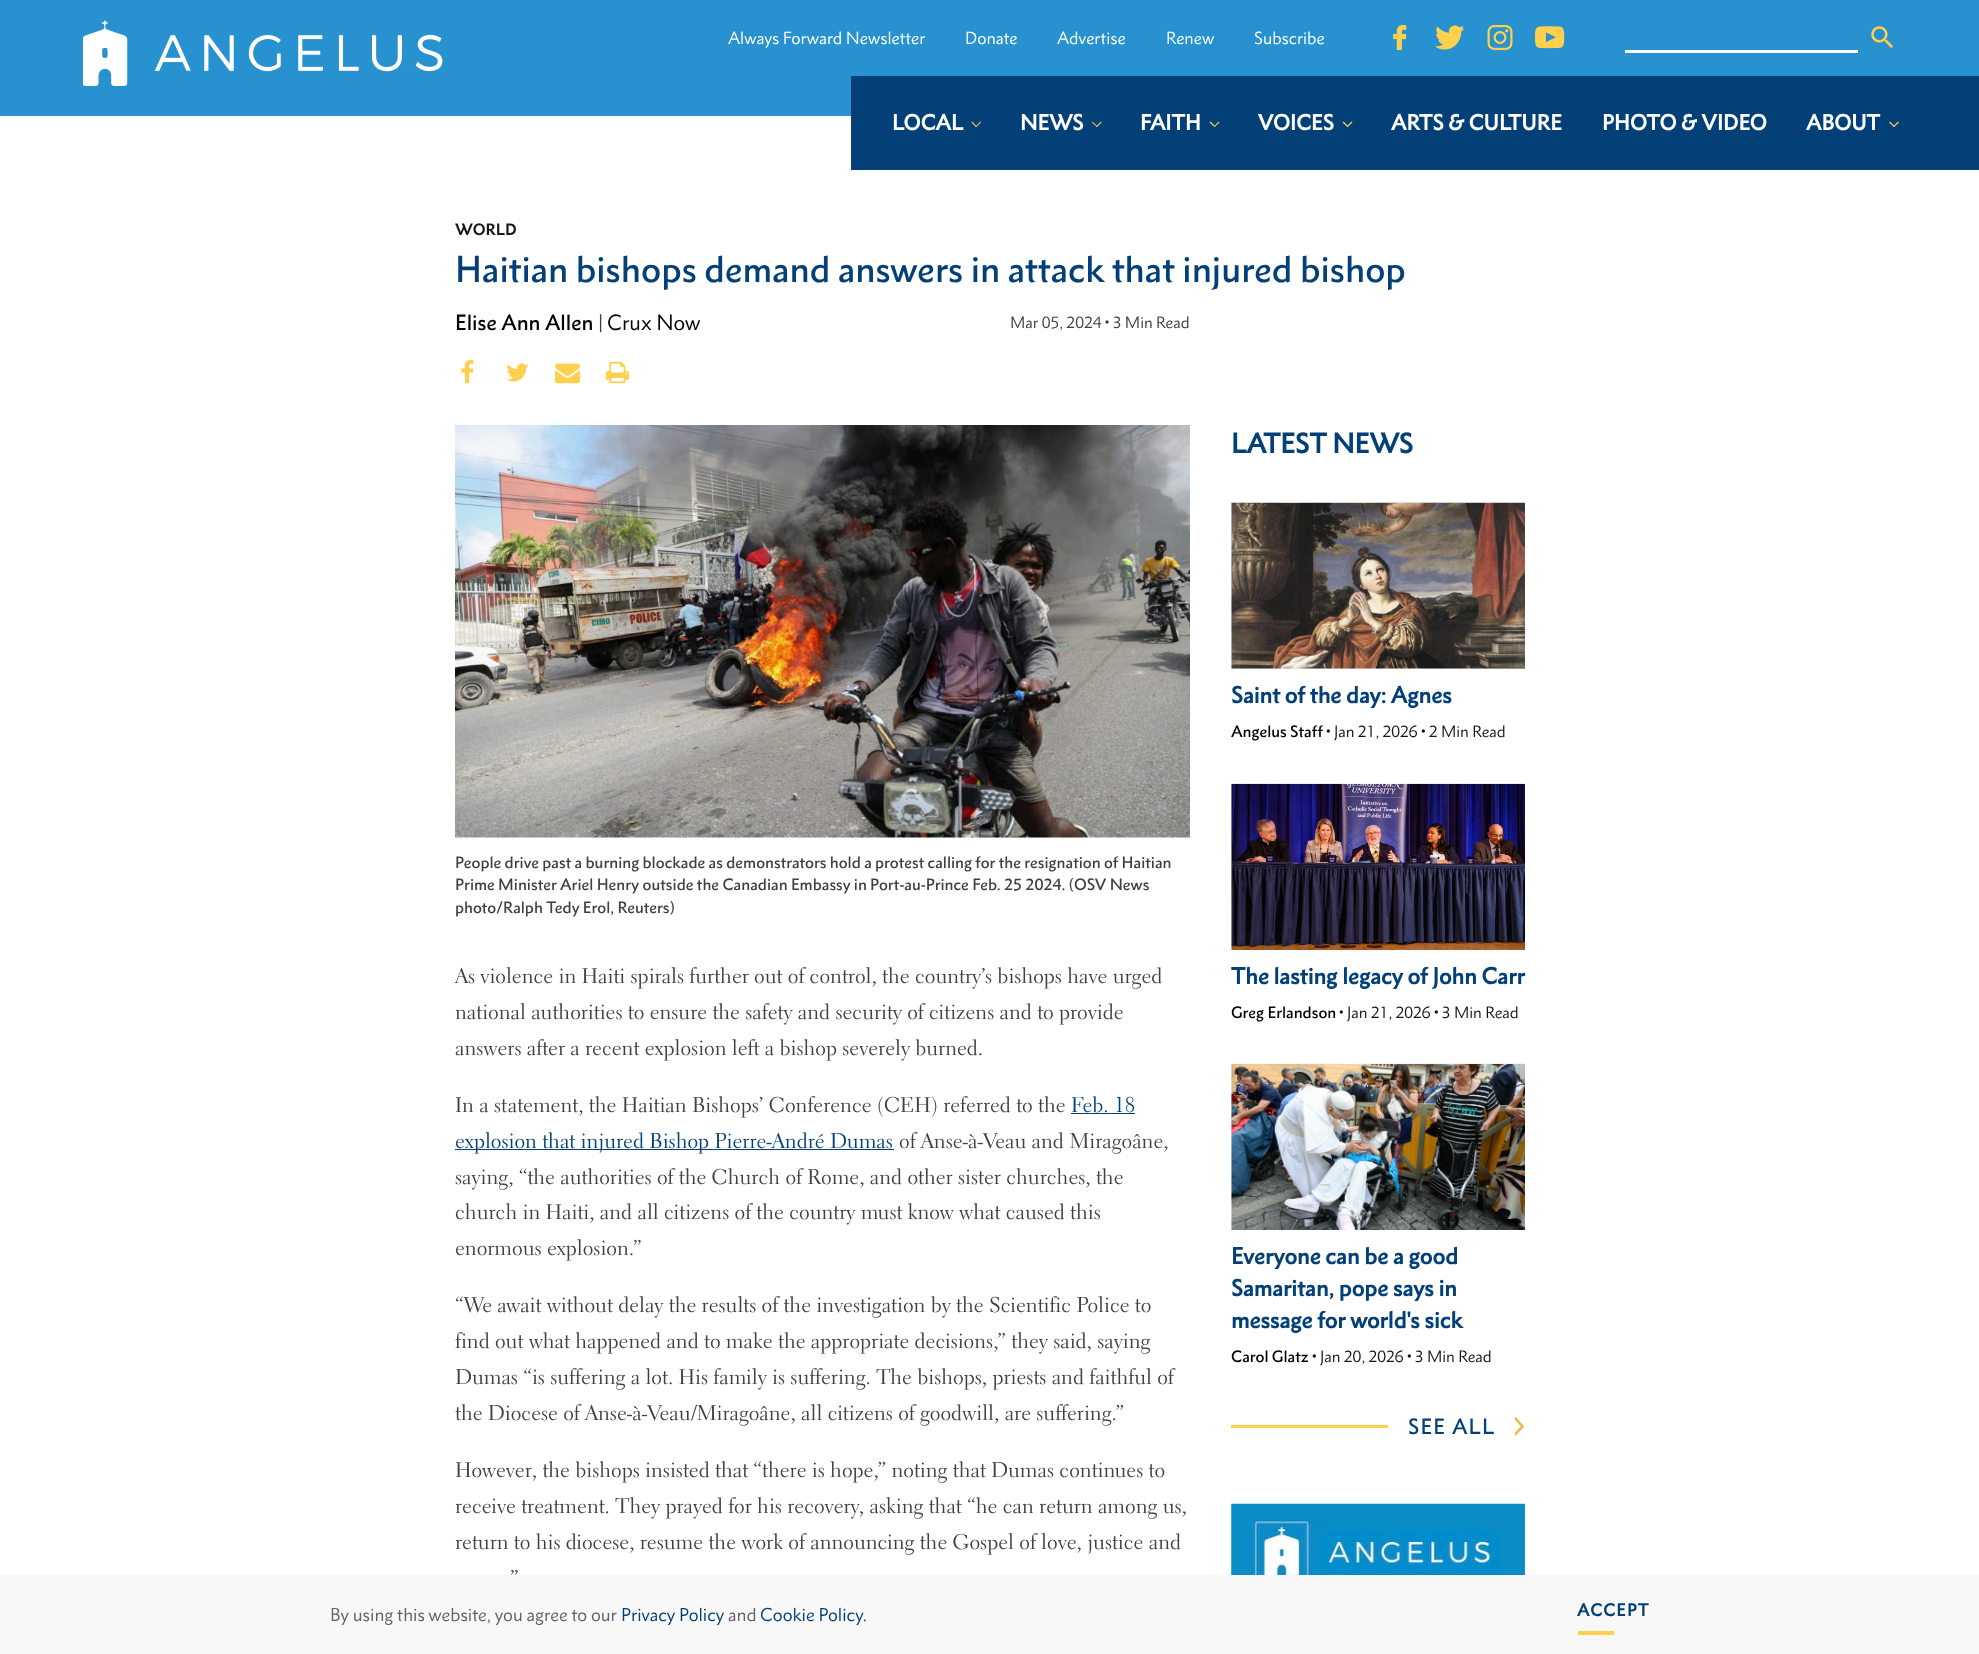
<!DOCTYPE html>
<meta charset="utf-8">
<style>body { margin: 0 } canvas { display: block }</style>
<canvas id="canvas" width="1979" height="1654"></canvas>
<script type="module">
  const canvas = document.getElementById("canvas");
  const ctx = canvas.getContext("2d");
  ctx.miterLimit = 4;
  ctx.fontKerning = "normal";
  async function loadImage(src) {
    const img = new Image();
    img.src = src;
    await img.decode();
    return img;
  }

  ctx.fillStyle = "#ffffff";
  ctx.fillRect(0, 0, 1979, 1654);
  ctx.fillStyle = "#2792cf";
  ctx.fillRect(0, 0, 1979, 116);
  ctx.drawImage(await loadImage("img1.png"), 83, 20, 360, 66);
  ctx.font = "16px 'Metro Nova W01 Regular'";
  ctx.fillStyle = "#ffffff";
  ctx.fillText("Always Forward Newsletter", 728, 44);
  ctx.fillText("Donate", 965, 44);
  ctx.fillText("Advertise", 1057, 44);
  ctx.fillText("Renew", 1166, 44);
  ctx.fillText("Subscribe", 1254, 44);
  ctx.drawImage(await loadImage("img2.png"), 1393, 25, 14, 25);
  ctx.drawImage(await loadImage("img3.png"), 1435, 25, 29, 25);
  ctx.drawImage(await loadImage("img4.png"), 1487, 25, 26, 25);
  ctx.drawImage(await loadImage("img5.png"), 1535, 26, 30, 23);
  ctx.drawImage(await loadImage("img6.png"), 1871, 26, 22, 22);
  ctx.fillRect(1625, 50, 233, 3);
  ctx.fillStyle = "#034078";
  ctx.fillRect(851, 76, 1128, 94);
  ctx.font = "bold 20px 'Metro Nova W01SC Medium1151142'";
  ctx.fillStyle = "#ffffff";
  ctx.fillText("LOCAL", 892, 130);
  ctx.fillStyle = "#ffd04e";
  ctx.beginPath();
  ctx.moveTo(981, 122.5);
  ctx.lineTo(976, 127);
  ctx.lineTo(975.5, 126.5);
  ctx.lineTo(980.5, 121.5);
  ctx.closePath();
  ctx.fill();
  ctx.beginPath();
  ctx.moveTo(977, 126.5);
  ctx.lineTo(976, 127);
  ctx.lineTo(971.5, 122.5);
  ctx.lineTo(972, 121.5);
  ctx.closePath();
  ctx.fill();
  ctx.fillStyle = "#ffffff";
  ctx.fillText("NEWS", 1020, 130);
  ctx.fillStyle = "#ffd04e";
  ctx.beginPath();
  ctx.moveTo(1101.5, 122.5);
  ctx.lineTo(1097, 127);
  ctx.lineTo(1096, 126.5);
  ctx.lineTo(1101, 121.5);
  ctx.closePath();
  ctx.fill();
  ctx.beginPath();
  ctx.moveTo(1097.5, 126.5);
  ctx.lineTo(1097, 127);
  ctx.lineTo(1092, 122.5);
  ctx.lineTo(1092.5, 121.5);
  ctx.closePath();
  ctx.fill();
  ctx.fillStyle = "#ffffff";
  ctx.fillText("FAITH", 1140, 130);
  ctx.fillStyle = "#ffd04e";
  ctx.beginPath();
  ctx.moveTo(1219.5, 122.5);
  ctx.lineTo(1214.5, 127);
  ctx.lineTo(1214, 126.5);
  ctx.lineTo(1218.5, 121.5);
  ctx.closePath();
  ctx.fill();
  ctx.beginPath();
  ctx.moveTo(1215.5, 126.5);
  ctx.lineTo(1214.5, 127);
  ctx.lineTo(1209.5, 122.5);
  ctx.lineTo(1210.5, 121.5);
  ctx.closePath();
  ctx.fill();
  ctx.fillStyle = "#ffffff";
  ctx.fillText("VOICES", 1258, 130);
  ctx.fillStyle = "#ffd04e";
  ctx.beginPath();
  ctx.moveTo(1352.5, 122.5);
  ctx.lineTo(1347.5, 127);
  ctx.lineTo(1346.5, 126.5);
  ctx.lineTo(1351.5, 121.5);
  ctx.closePath();
  ctx.fill();
  ctx.beginPath();
  ctx.moveTo(1348.5, 126.5);
  ctx.lineTo(1347.5, 127);
  ctx.lineTo(1342.5, 122.5);
  ctx.lineTo(1343.5, 121.5);
  ctx.closePath();
  ctx.fill();
  ctx.fillStyle = "#ffffff";
  ctx.fillText("ARTS & CULTURE", 1391, 130);
  ctx.fillText("PHOTO & VIDEO", 1602, 130);
  ctx.fillText("ABOUT", 1806, 130);
  ctx.fillStyle = "#ffd04e";
  ctx.beginPath();
  ctx.moveTo(1899, 122.5);
  ctx.lineTo(1894, 127);
  ctx.lineTo(1893, 126.5);
  ctx.lineTo(1898, 121.5);
  ctx.closePath();
  ctx.fill();
  ctx.beginPath();
  ctx.moveTo(1895, 126.5);
  ctx.lineTo(1894, 127);
  ctx.lineTo(1889, 122.5);
  ctx.lineTo(1890, 121.5);
  ctx.closePath();
  ctx.fill();
  ctx.font = "bold 15px 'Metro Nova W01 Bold'";
  ctx.fillStyle = "#161616";
  ctx.fillText("WORLD", 455, 235);
  ctx.font = "500 34px 'Metro Nova W01SC Medium1151142'";
  ctx.fillStyle = "#034078";
  ctx.fillText("Haitian bishops demand answers in attack that injured bishop", 455, 282);
  ctx.font = "500 20px 'Metro Nova W01SC Medium1151142'";
  ctx.fillStyle = "#000000";
  ctx.fillText("Elise Ann Allen", 455, 330);
  ctx.font = "20px 'Metro Nova W01 Regular'";
  ctx.fillStyle = "#404040";
  ctx.fillText("|", 598, 330);
  ctx.fillStyle = "#000000";
  ctx.fillText("Crux Now", 607, 330);
  ctx.font = "15px 'Metro Nova W01 Regular'";
  ctx.fillStyle = "#404040";
  ctx.fillText("Mar 05, 2024 • 3 Min Read", 1010, 328);
  ctx.drawImage(await loadImage("img7.png"), 461, 360, 13, 24);
  ctx.drawImage(await loadImage("img8.png"), 506, 363, 23, 19);
  ctx.drawImage(await loadImage("img9.png"), 555, 363, 25, 21);
  ctx.drawImage(await loadImage("img10.png"), 605, 361, 24, 23);
  ctx.drawImage(await loadImage("img11.png"), 455, 425, 735, 413);
  ctx.font = "500 15px 'Metro Nova W01SC Medium1151142'";
  ctx.fillText("People drive past a burning blockade as demonstrators hold a protest calling for the resignation of Haitian", 455, 868);
  ctx.fillText("Prime Minister Ariel Henry outside the Canadian Embassy in Port-au-Prince Feb. 25 2024. (OSV News", 455, 890);
  ctx.fillText("photo/Ralph Tedy Erol, Reuters)", 455, 913);
  ctx.font = "21.25px 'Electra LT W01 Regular'";
  ctx.fillText("As violence in Haiti spirals further out of control, the country’s bishops have urged", 455, 983);
  ctx.fillText("national authorities to ensure the safety and security of citizens and to provide", 455, 1019);
  ctx.fillText("answers after a recent explosion left a bishop severely burned.", 455, 1055);
  ctx.fillText("In a statement, the Haitian Bishops’ Conference (CEH) referred to the", 455, 1112);
  ctx.fillStyle = "#034078";
  ctx.fillText("Feb. 18", 1071, 1112);
  ctx.fillRect(1071, 1113, 64, 1);
  ctx.fillRect(455, 1149, 439, 1);
  ctx.fillText("explosion that injured Bishop Pierre-André Dumas", 455, 1148);
  ctx.fillStyle = "#404040";
  ctx.fillText("of Anse-à-Veau and Miragoâne,", 899, 1148);
  ctx.fillText("saying, “the authorities of the Church of Rome, and other sister churches, the", 455, 1184);
  ctx.fillText("church in Haiti, and all citizens of the country must know what caused this", 455, 1219);
  ctx.fillText("enormous explosion.”", 455, 1255);
  ctx.fillText("“We await without delay the results of the investigation by the Scientific Police to", 455, 1312);
  ctx.fillText("find out what happened and to make the appropriate decisions,” they said, saying", 455, 1348);
  ctx.fillText("Dumas “is suffering a lot. His family is suffering. The bishops, priests and faithful of", 455, 1384);
  ctx.fillText("the Diocese of Anse-à-Veau/Miragoâne, all citizens of goodwill, are suffering.”", 455, 1420);
  ctx.fillText("However, the bishops insisted that “there is hope,” noting that Dumas continues to", 455, 1477);
  ctx.fillText("receive treatment. They prayed for his recovery, asking that “he can return among us,", 455, 1513);
  ctx.fillText("return to his diocese, resume the work of announcing the Gospel of love, justice and", 455, 1549);
  ctx.fillText("”", 510, 1585);
  ctx.font = "bold 25.5px 'Metro Nova W01SC Medium1151142'";
  ctx.fillStyle = "#034078";
  ctx.fillText("LATEST NEWS", 1231, 453);
  ctx.drawImage(await loadImage("img12.png"), 1231, 502, 294, 167);
  ctx.font = "bold 21.25px 'Metro Nova W01SC Medium1151142'";
  ctx.fillText("Saint of the day: Agnes", 1231, 703);
  ctx.font = "500 15px 'Metro Nova W01SC Medium1151142'";
  ctx.fillStyle = "#000000";
  ctx.fillText("Angelus Staff", 1231, 737);
  ctx.font = "15px 'Metro Nova W01 Regular'";
  ctx.fillStyle = "#161616";
  ctx.fillText("• Jan 21, 2026 • 2 Min Read", 1326, 737);
  ctx.drawImage(await loadImage("img13.png"), 1231, 783, 294, 167);
  ctx.font = "bold 21.25px 'Metro Nova W01SC Medium1151142'";
  ctx.fillStyle = "#034078";
  ctx.fillText("The lasting legacy of John Carr", 1231, 984);
  ctx.font = "500 15px 'Metro Nova W01SC Medium1151142'";
  ctx.fillStyle = "#000000";
  ctx.fillText("Greg Erlandson", 1231, 1018);
  ctx.font = "15px 'Metro Nova W01 Regular'";
  ctx.fillStyle = "#161616";
  ctx.fillText("• Jan 21, 2026 • 3 Min Read", 1339, 1018);
  ctx.drawImage(await loadImage("img14.png"), 1231, 1063, 294, 167);
  ctx.font = "bold 21.25px 'Metro Nova W01SC Medium1151142'";
  ctx.fillStyle = "#034078";
  ctx.fillText("Everyone can be a good", 1231, 1264);
  ctx.fillText("Samaritan, pope says in", 1231, 1296);
  ctx.fillText("message for world's sick", 1231, 1328);
  ctx.font = "500 15px 'Metro Nova W01SC Medium1151142'";
  ctx.fillStyle = "#000000";
  ctx.fillText("Carol Glatz", 1231, 1362);
  ctx.font = "15px 'Metro Nova W01 Regular'";
  ctx.fillStyle = "#161616";
  ctx.fillText("• Jan 20, 2026 • 3 Min Read", 1312, 1362);
  ctx.fillStyle = "#ffd04e";
  ctx.fillRect(1231, 1425, 157, 3);
  ctx.letterSpacing = "1.25px";
  ctx.font = "500 20px 'Metro Nova W01SC Medium1151142'";
  ctx.fillStyle = "#034078";
  ctx.fillText("SEE ALL", 1408, 1434);
  ctx.save();
  ctx.beginPath();
  ctx.rect(1515, 1416, 10, 20);
  ctx.clip();
  ctx.beginPath();
  ctx.moveTo(1515.5, 1418.5);
  ctx.lineTo(1522.5, 1426.5);
  ctx.lineTo(1515.5, 1434);
  ctx.strokeStyle = "#e7bb41";
  ctx.lineWidth = 2.5;
  ctx.lineCap = "square";
  ctx.stroke();
  ctx.restore();
  ctx.drawImage(await loadImage("img15.png"), 1231, 1503, 294, 72);
  ctx.fillStyle = "#f8f8f8";
  ctx.fillRect(0, 1575, 1979, 79);
  ctx.letterSpacing = "0px";
  ctx.font = "17px 'Metro Nova W01 Regular'";
  ctx.fillStyle = "#636267";
  ctx.fillText("By using this website, you agree to our", 330, 1621);
  ctx.fillStyle = "#034078";
  ctx.fillText("Privacy Policy", 621, 1621);
  ctx.fillStyle = "#636267";
  ctx.fillText("and", 728, 1621);
  ctx.fillStyle = "#034078";
  ctx.fillText("Cookie Policy.", 760, 1621);
  ctx.letterSpacing = "1.25px";
  ctx.font = "bold 16px 'Metro Nova W01SC Medium1151142'";
  ctx.fillText("ACCEPT", 1577, 1616);
  ctx.fillStyle = "#ffd04e";
  ctx.fillRect(1578, 1631, 36, 4);
</script>
